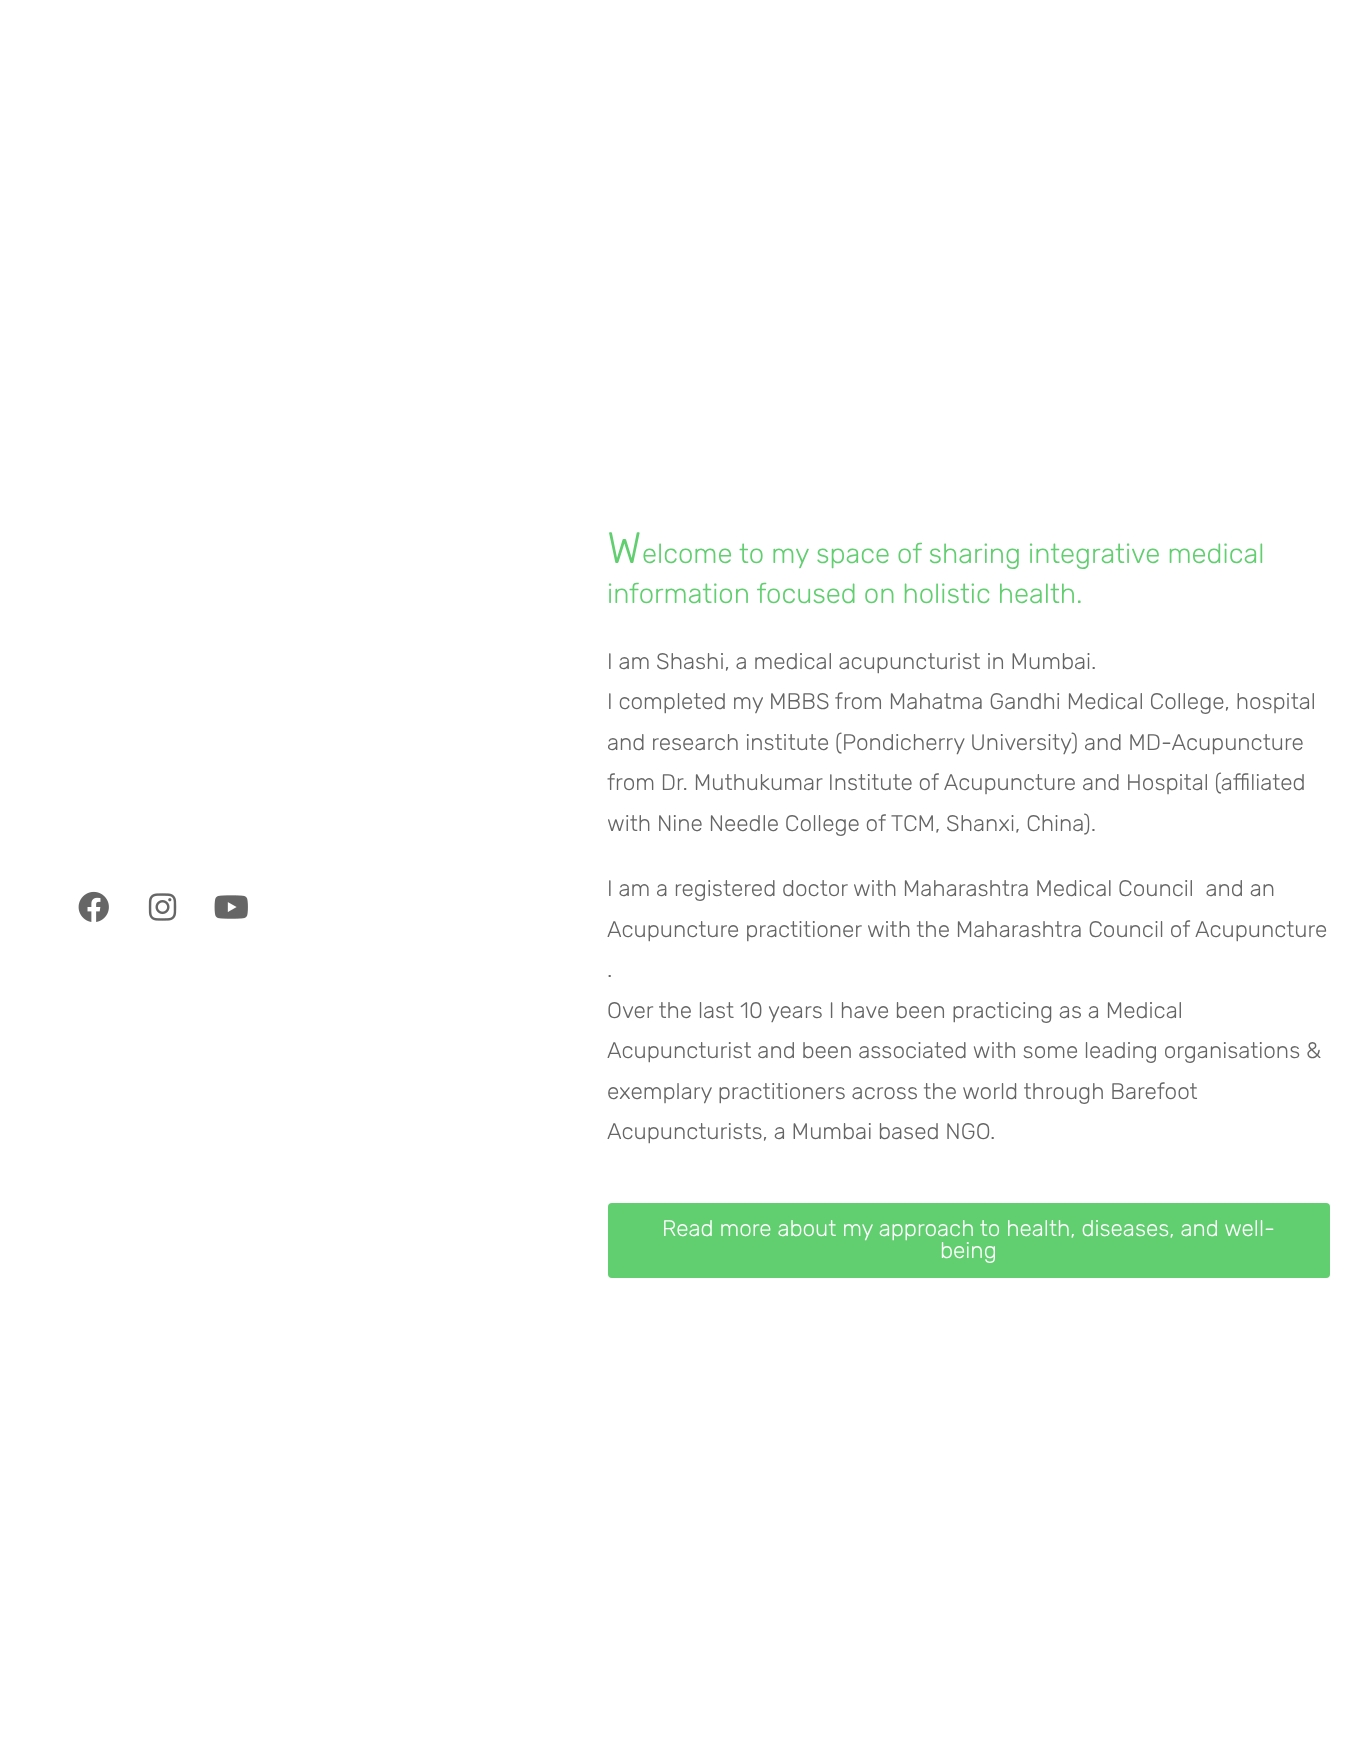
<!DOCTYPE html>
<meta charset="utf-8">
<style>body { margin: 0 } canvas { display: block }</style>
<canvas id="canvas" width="1355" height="1749"></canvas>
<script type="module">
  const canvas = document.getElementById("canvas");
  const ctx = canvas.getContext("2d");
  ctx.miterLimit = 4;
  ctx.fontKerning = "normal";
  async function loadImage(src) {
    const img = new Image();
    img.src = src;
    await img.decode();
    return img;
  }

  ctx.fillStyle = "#ffffff";
  ctx.fillRect(0, 0, 1355, 1749);
  ctx.drawImage(await loadImage("img1.png"), 78, 891, 31, 31);
  ctx.drawImage(await loadImage("img2.png"), 148, 893, 29, 28);
  ctx.drawImage(await loadImage("img3.png"), 214, 895, 34, 24);
  ctx.font = "300 44px Rubik";
  ctx.fillStyle = "#61ce70";
  ctx.fillText("W", 607, 563);
  ctx.font = "300 27.5px Rubik";
  ctx.fillText("elcome to my space of sharing integrative medical", 642, 563);
  ctx.fillText("information focused on holistic health.", 607, 603);
  ctx.font = "300 22.5px Rubik";
  ctx.fillStyle = "#666666";
  ctx.fillText("I am Shashi, a medical acupuncturist in Mumbai.", 607, 669);
  ctx.fillText("I completed my MBBS from Mahatma Gandhi Medical College, hospital", 607, 709);
  ctx.fillText("and research institute (Pondicherry University) and MD-Acupuncture", 607, 750);
  ctx.fillText("from Dr. Muthukumar Institute of Acupuncture and Hospital (affiliated", 607, 790);
  ctx.fillText("with Nine Needle College of TCM, Shanxi, China).", 607, 831);
  ctx.fillText("I am a registered doctor with Maharashtra Medical Council  and an", 607, 896);
  ctx.fillText("Acupuncture practitioner with the Maharashtra Council of Acupuncture", 607, 937);
  ctx.fillText(".", 607, 977);
  ctx.fillText("Over the last 10 years I have been practicing as a Medical", 607, 1018);
  ctx.fillText("Acupuncturist and been associated with some leading organisations &", 607, 1058);
  ctx.fillText("exemplary practitioners across the world through Barefoot", 607, 1099);
  ctx.fillText("Acupuncturists, a Mumbai based NGO.", 607, 1139);
  ctx.fillStyle = "#61ce70";
  ctx.beginPath();
  ctx.roundRect(608, 1203, 722, 75, 4);
  ctx.fill();
  ctx.fillStyle = "#ffffff";
  ctx.fillText("Read more about my approach to health, diseases, and well-", 662, 1236);
  ctx.fillText("being", 940, 1258);
</script>
